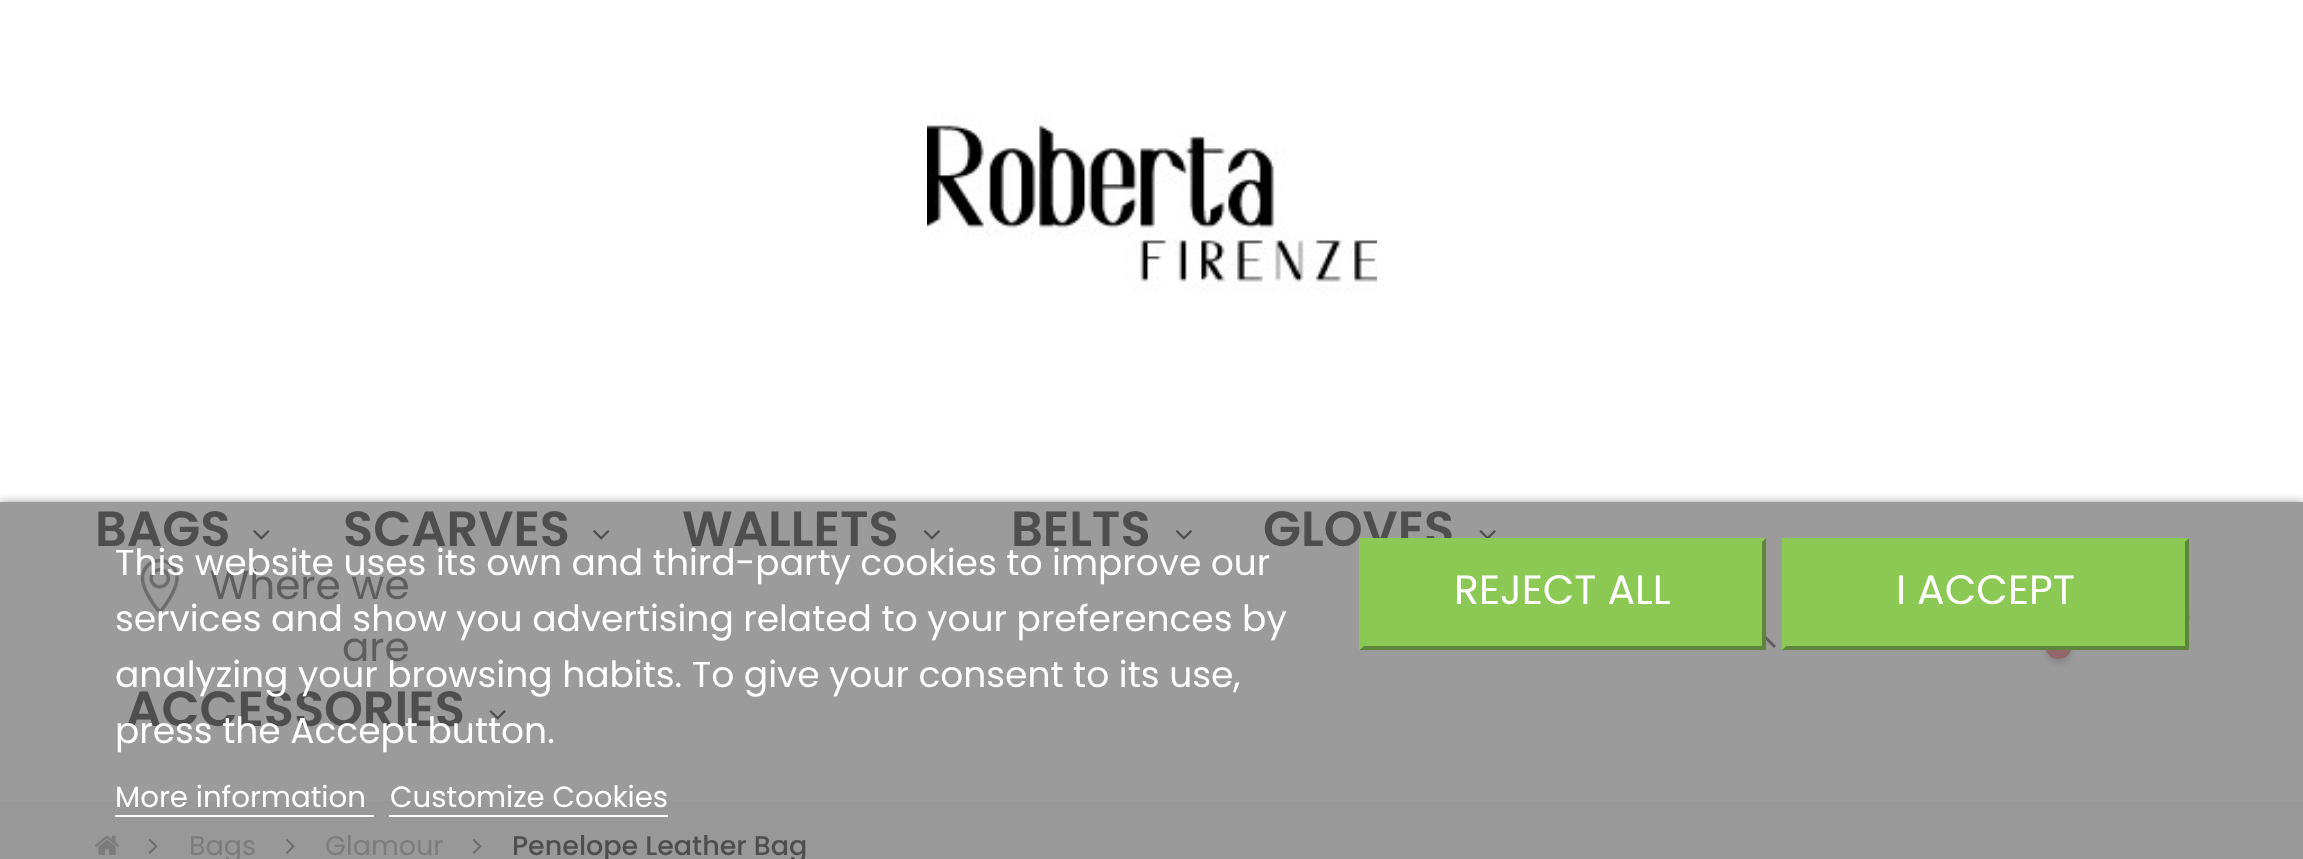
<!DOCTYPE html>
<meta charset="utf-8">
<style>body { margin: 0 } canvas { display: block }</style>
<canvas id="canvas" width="2303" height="859"></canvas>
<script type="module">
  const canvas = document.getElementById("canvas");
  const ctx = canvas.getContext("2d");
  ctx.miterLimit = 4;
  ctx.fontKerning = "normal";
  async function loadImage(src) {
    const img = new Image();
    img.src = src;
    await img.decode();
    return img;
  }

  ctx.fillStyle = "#ffffff";
  ctx.fillRect(0, 0, 2303, 859);
  ctx.fillStyle = "#9b9b9b";
  ctx.fillRect(0, 502, 2303, 299);
  ctx.font = "600 49.5px Poppins";
  ctx.fillStyle = "#4e4e4e";
  ctx.fillText("BAGS", 95, 546);
  ctx.drawImage(await loadImage("img1.png"), 253, 530, 17, 10);
  ctx.fillText("SCARVES", 343, 546);
  ctx.drawImage(await loadImage("img2.png"), 593, 530, 17, 10);
  ctx.fillText("WALLETS", 682, 546);
  ctx.drawImage(await loadImage("img3.png"), 923, 530, 17, 10);
  ctx.fillText("BELTS", 1011, 546);
  ctx.drawImage(await loadImage("img3.png"), 1175, 530, 17, 10);
  ctx.fillText("GLOVES", 1263, 546);
  ctx.drawImage(await loadImage("img4.png"), 1479, 530, 17, 8);
  ctx.fillText("ACCESSORIES", 126, 726);
  ctx.drawImage(await loadImage("img5.png"), 489, 710, 17, 10);
  ctx.fillStyle = "#5e5e5e";
  ctx.beginPath();
  ctx.moveTo(1776, 646);
  ctx.lineTo(1758, 628);
  ctx.bezierCurveTo(1763, 623, 1765, 615, 1763, 609);
  ctx.bezierCurveTo(1762, 603, 1759, 598, 1754, 595);
  ctx.bezierCurveTo(1734, 581, 1709, 605, 1723, 626);
  ctx.bezierCurveTo(1730, 637, 1746, 639, 1756, 630);
  ctx.lineTo(1774, 648);
  ctx.closePath();
  ctx.moveTo(1741, 632);
  ctx.bezierCurveTo(1736, 632, 1732, 630, 1728, 627);
  ctx.bezierCurveTo(1716, 615, 1725, 593, 1741, 594);
  ctx.bezierCurveTo(1767, 596, 1766, 632, 1741, 632);
  ctx.closePath();
  ctx.fill();
  ctx.drawImage(await loadImage("img6.png"), 2189, 614, 1, 7);
  ctx.fillStyle = "rgba(78, 78, 78, 0.2)";
  ctx.filter = "blur(2px)";
  ctx.beginPath();
  ctx.roundRect(2045, 637, 27, 27, 13.5);
  ctx.fill();
  ctx.filter = "none";
  ctx.fillStyle = "#92676a";
  ctx.beginPath();
  ctx.arc(2058.5, 645.5, 13.5, 0, Math.PI * 2);
  ctx.fill();
  ctx.drawImage(await loadImage("img7.png"), 927, 112, 450, 181);
  ctx.drawImage(await loadImage("img8.png"), 140, 558, 39, 57);
  ctx.font = "40.5px Poppins";
  ctx.fillStyle = "#5e5e5e";
  ctx.fillText(" Where we", 199, 599);
  ctx.fillText("are", 342, 661);
  ctx.fillStyle = "#989898";
  ctx.fillRect(0, 801, 2303, 58);
  ctx.drawImage(await loadImage("img9.png"), 95, 835, 25, 20);
  ctx.drawImage(await loadImage("img10.png"), 148, 838, 10, 16);
  ctx.drawImage(await loadImage("img11.png"), 286, 838, 9, 16);
  ctx.drawImage(await loadImage("img10.png"), 472, 838, 10, 16);
  ctx.save();
  ctx.beginPath();
  ctx.rect(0, 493, 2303, 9);
  ctx.clip();
  ctx.fillStyle = "#707070";
  ctx.filter = "blur(5.5px)";
  ctx.beginPath();
  ctx.rect(0, 504, 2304, 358);
  ctx.fill();
  ctx.filter = "none";
  ctx.restore();
  ctx.font = "36px Poppins";
  ctx.fillStyle = "#ffffff";
  ctx.fillText("This website uses its own and third-party cookies to improve our", 115, 575);
  ctx.fillText("services and show you advertising related to your preferences by", 115, 631);
  ctx.fillText("analyzing your browsing habits. To give your consent to its use,", 115, 687);
  ctx.fillText("press the Accept button.", 115, 743);
  ctx.font = "29.25px Poppins";
  ctx.fillText("More information", 115, 807);
  ctx.fillRect(115, 815, 259, 2);
  ctx.fillText("Customize Cookies", 390, 807);
  ctx.fillRect(389, 815, 279, 2);
  ctx.fillStyle = "#8bc954";
  ctx.fillRect(1359, 538, 407, 112);
  ctx.fillStyle = "#5d8638";
  ctx.beginPath();
  ctx.moveTo(1766, 538);
  ctx.lineTo(1766, 650);
  ctx.lineTo(1762, 646);
  ctx.lineTo(1762, 542);
  ctx.closePath();
  ctx.fill();
  ctx.beginPath();
  ctx.moveTo(1766, 650);
  ctx.lineTo(1359, 650);
  ctx.lineTo(1364, 646);
  ctx.lineTo(1762, 646);
  ctx.closePath();
  ctx.fill();
  ctx.fillStyle = "#8bc954";
  ctx.beginPath();
  ctx.moveTo(1359, 650);
  ctx.lineTo(1359, 538);
  ctx.lineTo(1364, 542);
  ctx.lineTo(1364, 646);
  ctx.closePath();
  ctx.fill();
  ctx.font = "41px Poppins";
  ctx.fillStyle = "#ffffff";
  ctx.fillText("REJECT ALL", 1454, 604);
  ctx.fillStyle = "#8bc954";
  ctx.fillRect(1782, 538, 407, 112);
  ctx.fillStyle = "#5d8638";
  ctx.beginPath();
  ctx.moveTo(2189, 538);
  ctx.lineTo(2189, 650);
  ctx.lineTo(2185, 646);
  ctx.lineTo(2185, 542);
  ctx.closePath();
  ctx.fill();
  ctx.beginPath();
  ctx.moveTo(2189, 650);
  ctx.lineTo(1782, 650);
  ctx.lineTo(1786, 646);
  ctx.lineTo(2185, 646);
  ctx.closePath();
  ctx.fill();
  ctx.fillStyle = "#8bc954";
  ctx.beginPath();
  ctx.moveTo(1782, 650);
  ctx.lineTo(1782, 538);
  ctx.lineTo(1786, 542);
  ctx.lineTo(1786, 646);
  ctx.closePath();
  ctx.fill();
  ctx.fillStyle = "#ffffff";
  ctx.fillText("I ACCEPT", 1896, 604);
  ctx.font = "27px Poppins";
  ctx.fillStyle = "#7c7c7c";
  ctx.fillText("Bags", 189, 855);
  ctx.fillText("Glamour", 325, 855);
  ctx.font = "500 27px Poppins";
  ctx.fillStyle = "#4e4e4e";
  ctx.fillText("Penelope Leather Bag", 512, 855);
</script>
